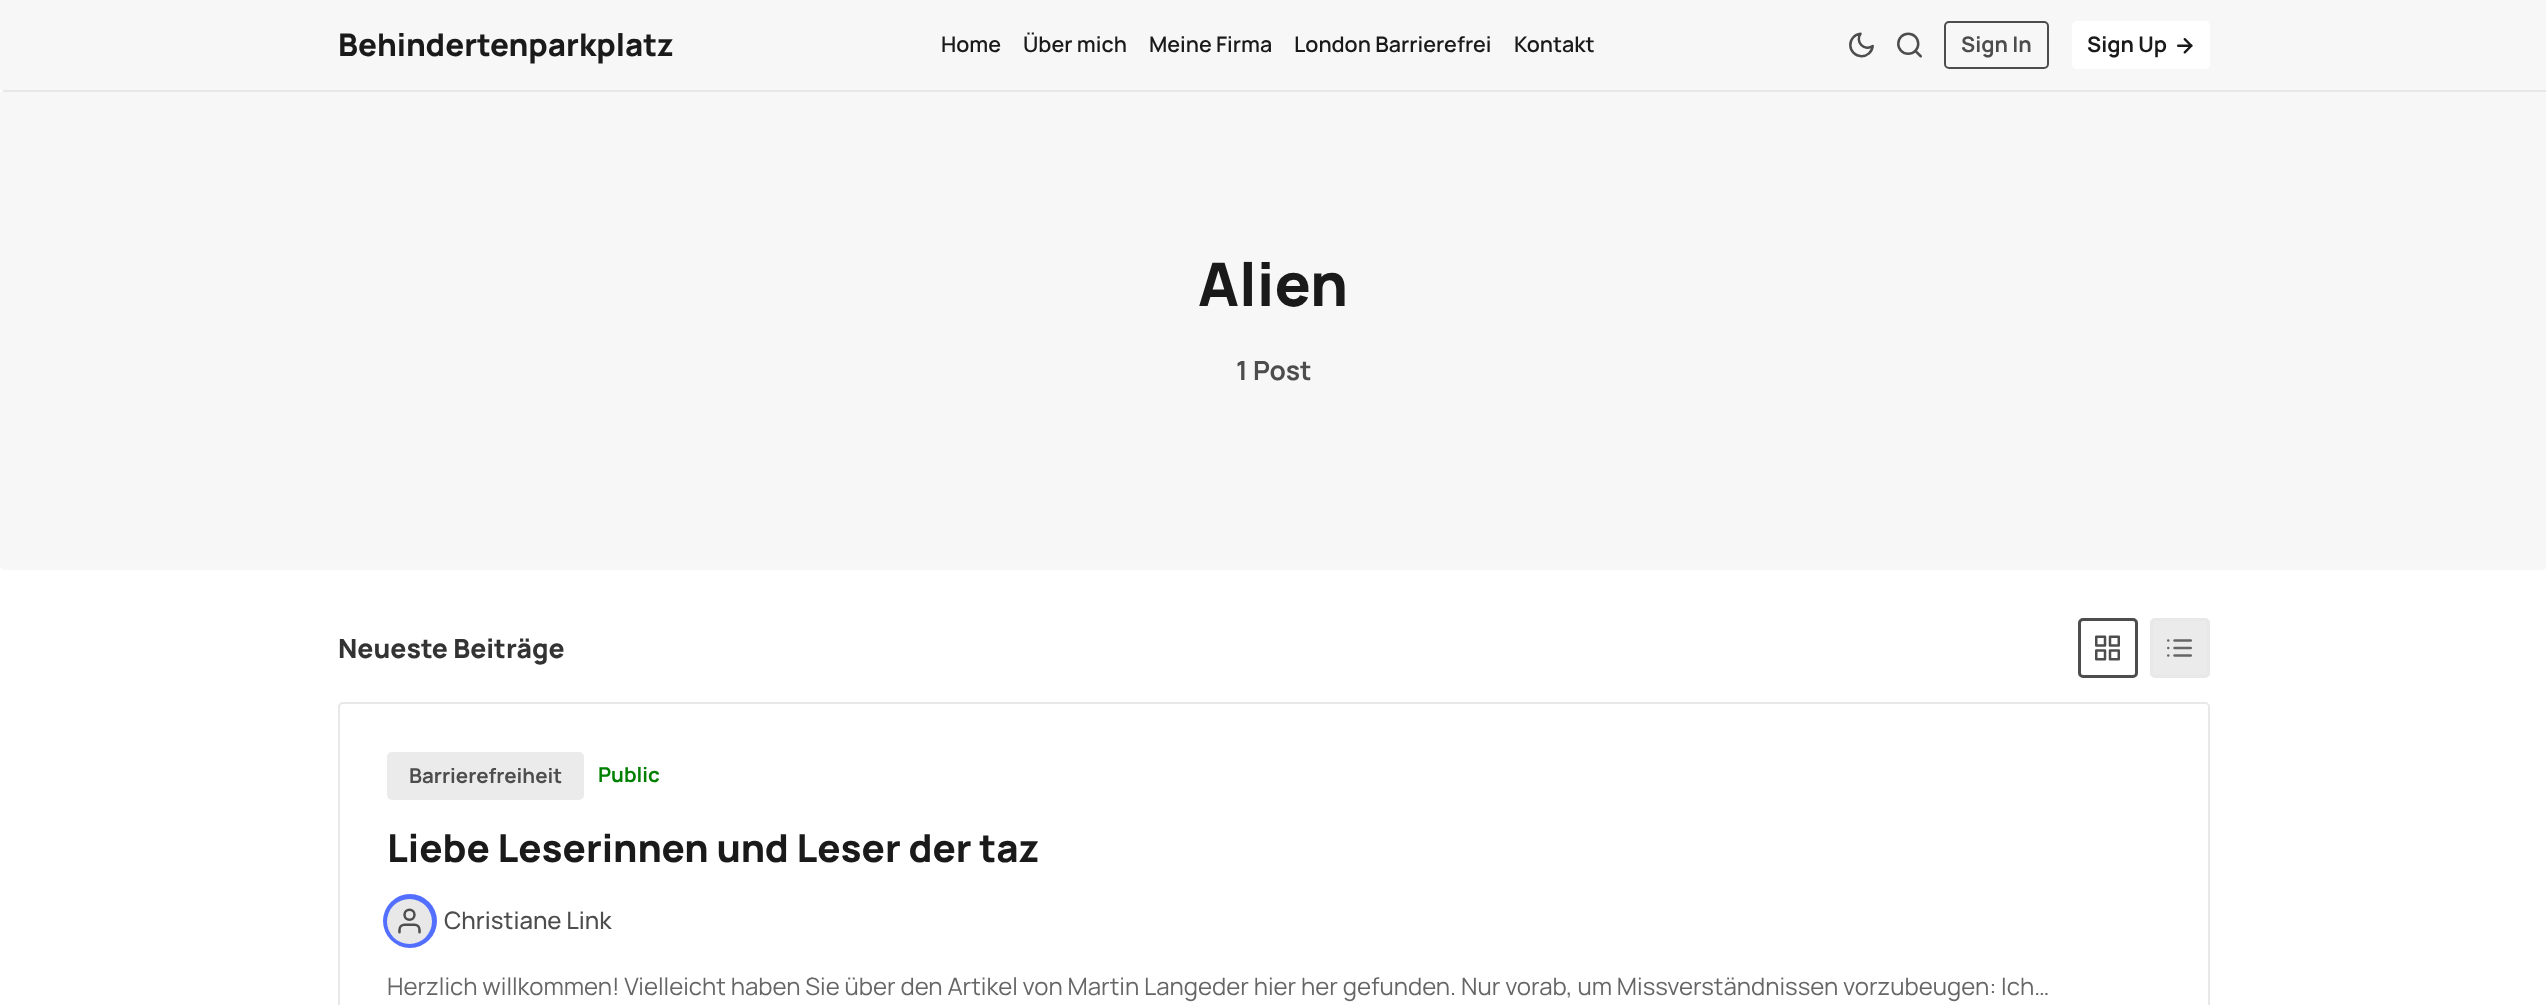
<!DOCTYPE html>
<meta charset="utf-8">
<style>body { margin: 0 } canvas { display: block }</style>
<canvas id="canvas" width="2546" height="1005"></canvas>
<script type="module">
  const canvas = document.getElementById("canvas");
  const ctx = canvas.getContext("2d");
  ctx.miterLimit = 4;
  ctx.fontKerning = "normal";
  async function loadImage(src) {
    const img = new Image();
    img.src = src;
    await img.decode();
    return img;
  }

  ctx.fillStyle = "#ffffff";
  ctx.fillRect(0, 0, 2546, 1005);
  ctx.fillStyle = "#f7f7f7";
  ctx.fillRect(0, 0, 2546, 90);
  ctx.font = "800 31.25px Manrope";
  ctx.fillStyle = "#1a1a1a";
  ctx.fillText("Behindertenparkplatz", 338, 56);
  ctx.font = "600 21.5px Manrope";
  ctx.fillText("Home", 941, 52);
  ctx.fillText("Über mich", 1023, 52);
  ctx.fillText("Meine Firma", 1149, 52);
  ctx.fillText("London Barrierefrei", 1294, 52);
  ctx.fillText("Kontakt", 1514, 52);
  ctx.drawImage(await loadImage("img1.png"), 1849, 32, 25, 26);
  ctx.drawImage(await loadImage("img2.png"), 1897, 32, 25, 26);
  ctx.beginPath();
  ctx.roundRect(1945, 22, 103, 46, 4);
  ctx.strokeStyle = "#4d4d4d";
  ctx.lineWidth = 2;
  ctx.stroke();
  ctx.font = "bold 21.5px Manrope";
  ctx.fillStyle = "#4d4d4d";
  ctx.fillText("Sign In", 1961, 52);
  ctx.fillStyle = "#ffffff";
  ctx.beginPath();
  ctx.roundRect(2072, 21, 138, 48, 5);
  ctx.fill();
  ctx.fillStyle = "#1a1a1a";
  ctx.fillText("Sign Up", 2087, 52);
  ctx.drawImage(await loadImage("img3.png"), 2177, 38, 16, 16);
  ctx.fillStyle = "#f7f7f7";
  ctx.beginPath();
  ctx.roundRect(0, 90, 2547, 480, 5);
  ctx.fill();
  ctx.fillStyle = "#e8e8e8";
  ctx.fillRect(3, 90, 2543, 2);
  ctx.font = "800 60px Manrope";
  ctx.fillStyle = "#1a1a1a";
  ctx.fillText("Alien", 1198, 306);
  ctx.font = "bold 26.5px Manrope";
  ctx.fillStyle = "#4d4d4d";
  ctx.fillText("1 Post", 1236, 380);
  ctx.font = "800 26.5px Manrope";
  ctx.fillStyle = "#333333";
  ctx.fillText("Neueste Beiträge", 338, 658);
  ctx.beginPath();
  ctx.roundRect(2079.5, 619.5, 57, 57, 3.5);
  ctx.lineWidth = 3;
  ctx.stroke();
  ctx.drawImage(await loadImage("img4.png"), 2095, 635, 25, 26);
  ctx.fillStyle = "#ebebeb";
  ctx.beginPath();
  ctx.roundRect(2151.5, 619.5, 57, 57, 3.5);
  ctx.fill();
  ctx.strokeStyle = "#e8e8e8";
  ctx.stroke();
  ctx.drawImage(await loadImage("img5.png"), 2167, 639, 26, 18);
  ctx.beginPath();
  ctx.roundRect(339, 703, 1870, 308, 4);
  ctx.lineWidth = 2;
  ctx.stroke();
  ctx.beginPath();
  ctx.roundRect(387, 752, 197, 48, 5);
  ctx.fill();
  ctx.font = "bold 20.5px Manrope";
  ctx.fillStyle = "#4d4d4d";
  ctx.fillText("Barrierefreiheit", 409, 783);
  ctx.fillStyle = "#008000";
  ctx.fillText("Public", 598, 782);
  ctx.font = "800 38.4px Manrope";
  ctx.fillStyle = "#1a1a1a";
  ctx.fillText("Liebe Leserinnen und Leser der taz", 387, 862);
  ctx.fillStyle = "rgba(25, 63, 255, 0.75)";
  ctx.beginPath();
  ctx.arc(410, 921, 27, 0, Math.PI * 2);
  ctx.fill();
  ctx.fillStyle = "#e8e8e8";
  ctx.beginPath();
  ctx.arc(409.5, 921.5, 22.5, 0, Math.PI * 2);
  ctx.fill();
  ctx.drawImage(await loadImage("img6.png"), 398, 908, 23, 26);
  ctx.font = "500 24px Manrope";
  ctx.fillStyle = "#4d4d4d";
  ctx.fillText("Christiane Link", 444, 929);
  ctx.font = "24px Manrope";
  ctx.fillStyle = "#666666";
  ctx.fillText("Herzlich willkommen! Vielleicht haben Sie über den Artikel von Martin Langeder hier her gefunden. Nur vorab, um Missverständnissen vorzubeugen: Ich…", 387, 995);
</script>
